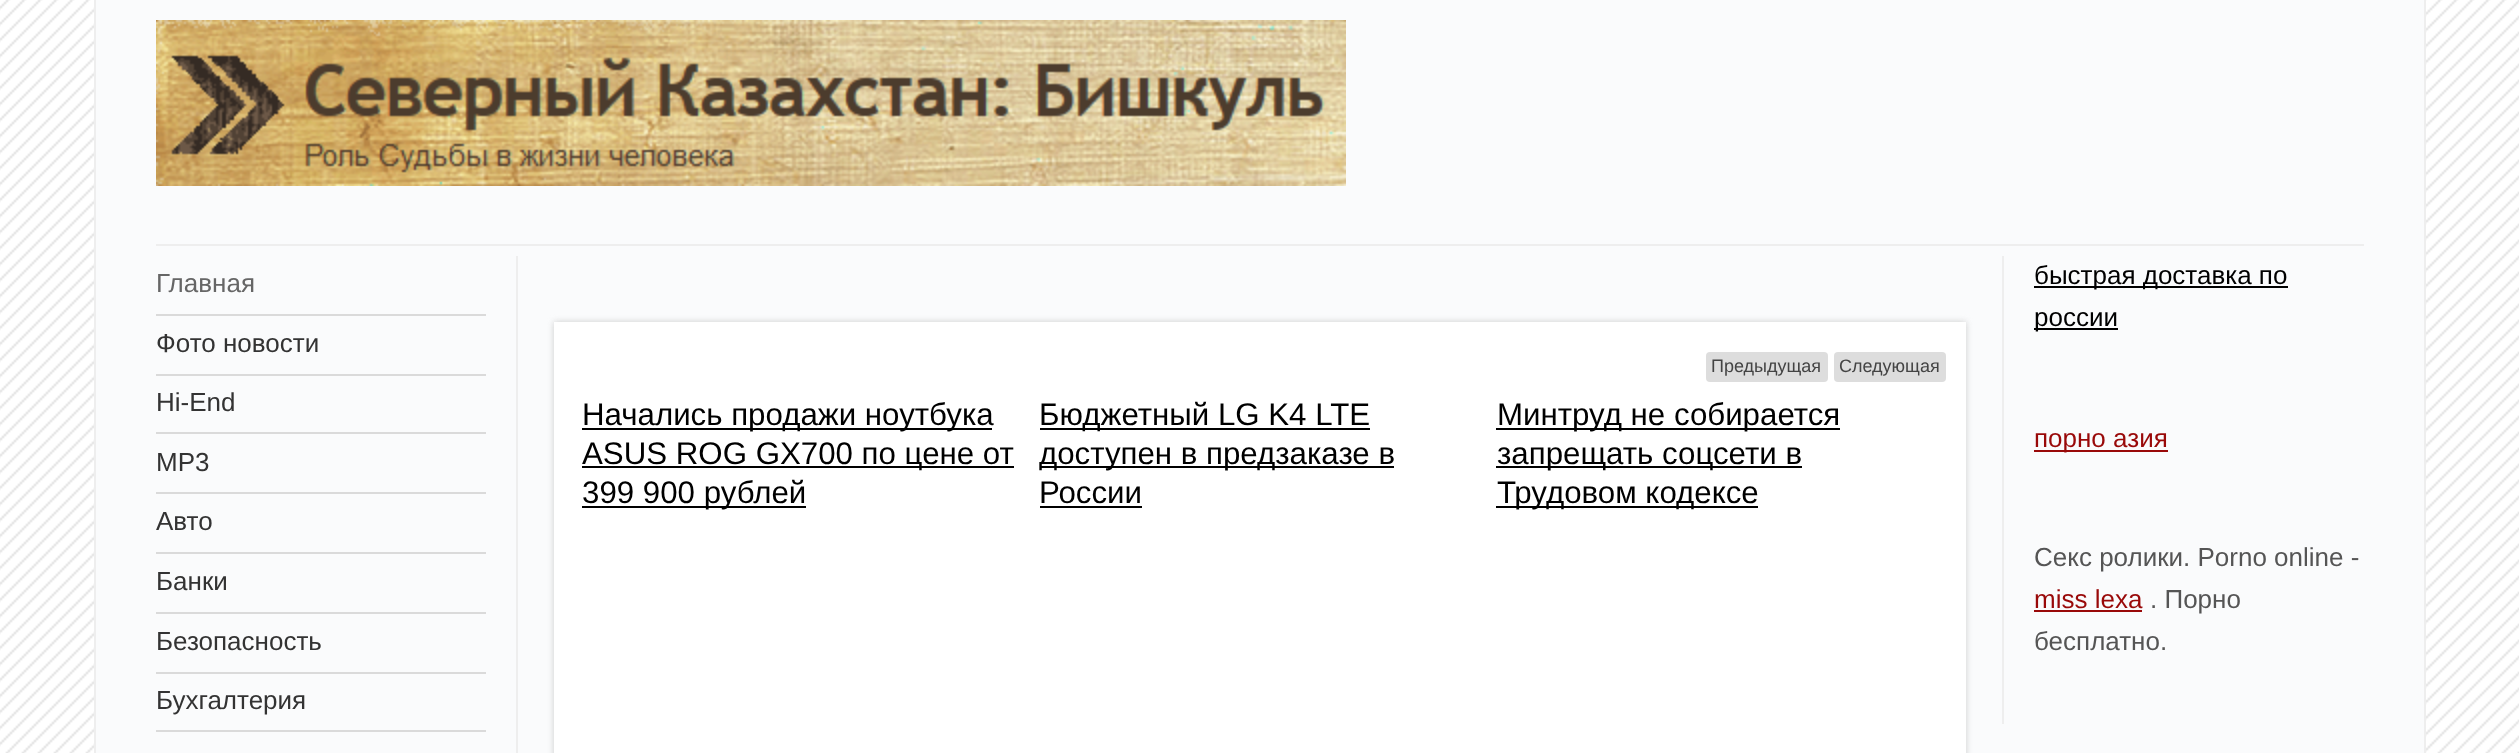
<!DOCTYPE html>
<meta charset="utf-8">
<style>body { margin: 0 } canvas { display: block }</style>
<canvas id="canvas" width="2519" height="753"></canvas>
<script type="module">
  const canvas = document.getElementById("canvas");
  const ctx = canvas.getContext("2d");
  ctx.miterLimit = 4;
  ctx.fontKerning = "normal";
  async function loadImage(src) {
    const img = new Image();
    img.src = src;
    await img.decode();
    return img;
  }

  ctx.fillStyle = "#ffffff";
  ctx.fillRect(0, 0, 2519, 753);
  ctx.drawImage(await loadImage("img1.png"), 0, 0, 2519, 753);
  ctx.fillStyle = "#fafbfc";
  ctx.fillRect(96, 0, 2328, 753);
  ctx.fillStyle = "#eeeeee";
  ctx.fillRect(2424, 0, 2, 753);
  ctx.fillRect(94, 0, 2, 753);
  ctx.drawImage(await loadImage("img2.png"), 156, 20, 1190, 166);
  ctx.fillRect(156, 244, 2208, 2);
  ctx.fillRect(516, 256, 2, 497);
  ctx.fillStyle = "#dadada";
  ctx.fillRect(156, 314, 330, 2);
  ctx.font = "26px Liberation Sans";
  ctx.fillStyle = "#666666";
  ctx.fillText("Главная", 156, 292);
  ctx.fillStyle = "#dadada";
  ctx.fillRect(156, 374, 330, 2);
  ctx.fillStyle = "#333333";
  ctx.fillText("Фото новости", 156, 352);
  ctx.fillStyle = "#dadada";
  ctx.fillRect(156, 432, 330, 2);
  ctx.fillStyle = "#333333";
  ctx.fillText("Hi-End", 156, 411);
  ctx.fillStyle = "#dadada";
  ctx.fillRect(156, 492, 330, 2);
  ctx.fillStyle = "#333333";
  ctx.fillText("MP3", 156, 471);
  ctx.fillStyle = "#dadada";
  ctx.fillRect(156, 552, 330, 2);
  ctx.fillStyle = "#333333";
  ctx.fillText("Авто", 156, 530);
  ctx.fillStyle = "#dadada";
  ctx.fillRect(156, 612, 330, 2);
  ctx.fillStyle = "#333333";
  ctx.fillText("Банки", 156, 590);
  ctx.fillStyle = "#dadada";
  ctx.fillRect(156, 672, 330, 2);
  ctx.fillStyle = "#333333";
  ctx.fillText("Безопасность", 156, 650);
  ctx.fillStyle = "#dadada";
  ctx.fillRect(156, 730, 330, 2);
  ctx.fillStyle = "#333333";
  ctx.fillText("Бухгалтерия", 156, 709);
  ctx.fillStyle = "#cccccc";
  ctx.filter = "blur(3px)";
  ctx.beginPath();
  ctx.rect(554, 322, 1412, 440);
  ctx.fill();
  ctx.filter = "none";
  ctx.fillStyle = "#ffffff";
  ctx.fillRect(554, 322, 1412, 431);
  ctx.fillStyle = "#dddddd";
  ctx.beginPath();
  ctx.roundRect(1706, 352, 122, 30, 4);
  ctx.fill();
  ctx.font = "18px Liberation Sans";
  ctx.fillStyle = "#444444";
  ctx.fillText("Предыдущая", 1711, 372);
  ctx.fillStyle = "#dddddd";
  ctx.beginPath();
  ctx.roundRect(1834, 352, 112, 30, 4);
  ctx.fill();
  ctx.fillStyle = "#444444";
  ctx.fillText("Следующая", 1839, 372);
  ctx.fillStyle = "#000000";
  ctx.fillRect(582, 428, 410, 2);
  ctx.font = "31.25px Liberation Sans";
  ctx.fillText("Начались продажи ноутбука", 582, 425);
  ctx.fillRect(582, 466, 432, 2);
  ctx.fillText("ASUS ROG GX700 по цене от", 582, 464);
  ctx.fillRect(582, 506, 224, 2);
  ctx.fillText("399 900 рублей", 582, 503);
  ctx.fillRect(1040, 428, 330, 2);
  ctx.fillText("Бюджетный LG K4 LTE", 1039, 425);
  ctx.fillRect(1040, 466, 354, 2);
  ctx.fillText("доступен в предзаказе в", 1039, 464);
  ctx.fillText("России", 1039, 503);
  ctx.fillRect(1040, 506, 102, 2);
  ctx.fillRect(1496, 428, 344, 2);
  ctx.fillText("Минтруд не собирается", 1497, 425);
  ctx.fillRect(1496, 466, 306, 2);
  ctx.fillText("запрещать соцсети в", 1497, 464);
  ctx.fillRect(1496, 506, 262, 2);
  ctx.fillText("Трудовом кодексе", 1497, 503);
  ctx.fillStyle = "#eeeeee";
  ctx.fillRect(2002, 256, 2, 468);
  ctx.fillStyle = "#000000";
  ctx.fillRect(2034, 286, 254, 2);
  ctx.font = "26px Liberation Sans";
  ctx.fillText("быстрая доставка по", 2034, 284);
  ctx.fillRect(2034, 328, 84, 2);
  ctx.fillText("россии", 2034, 326);
  ctx.fillStyle = "#990909";
  ctx.fillRect(2034, 450, 134, 2);
  ctx.fillText("порно азия", 2034, 447);
  ctx.fillStyle = "#555555";
  ctx.fillText("Секс ролики. Porno online -", 2034, 566);
  ctx.fillStyle = "#990909";
  ctx.fillText("miss lexa", 2034, 608);
  ctx.fillRect(2034, 610, 108, 2);
  ctx.fillStyle = "#555555";
  ctx.fillText(". Порно", 2150, 608);
  ctx.fillText("бесплатно.", 2034, 650);
</script>
